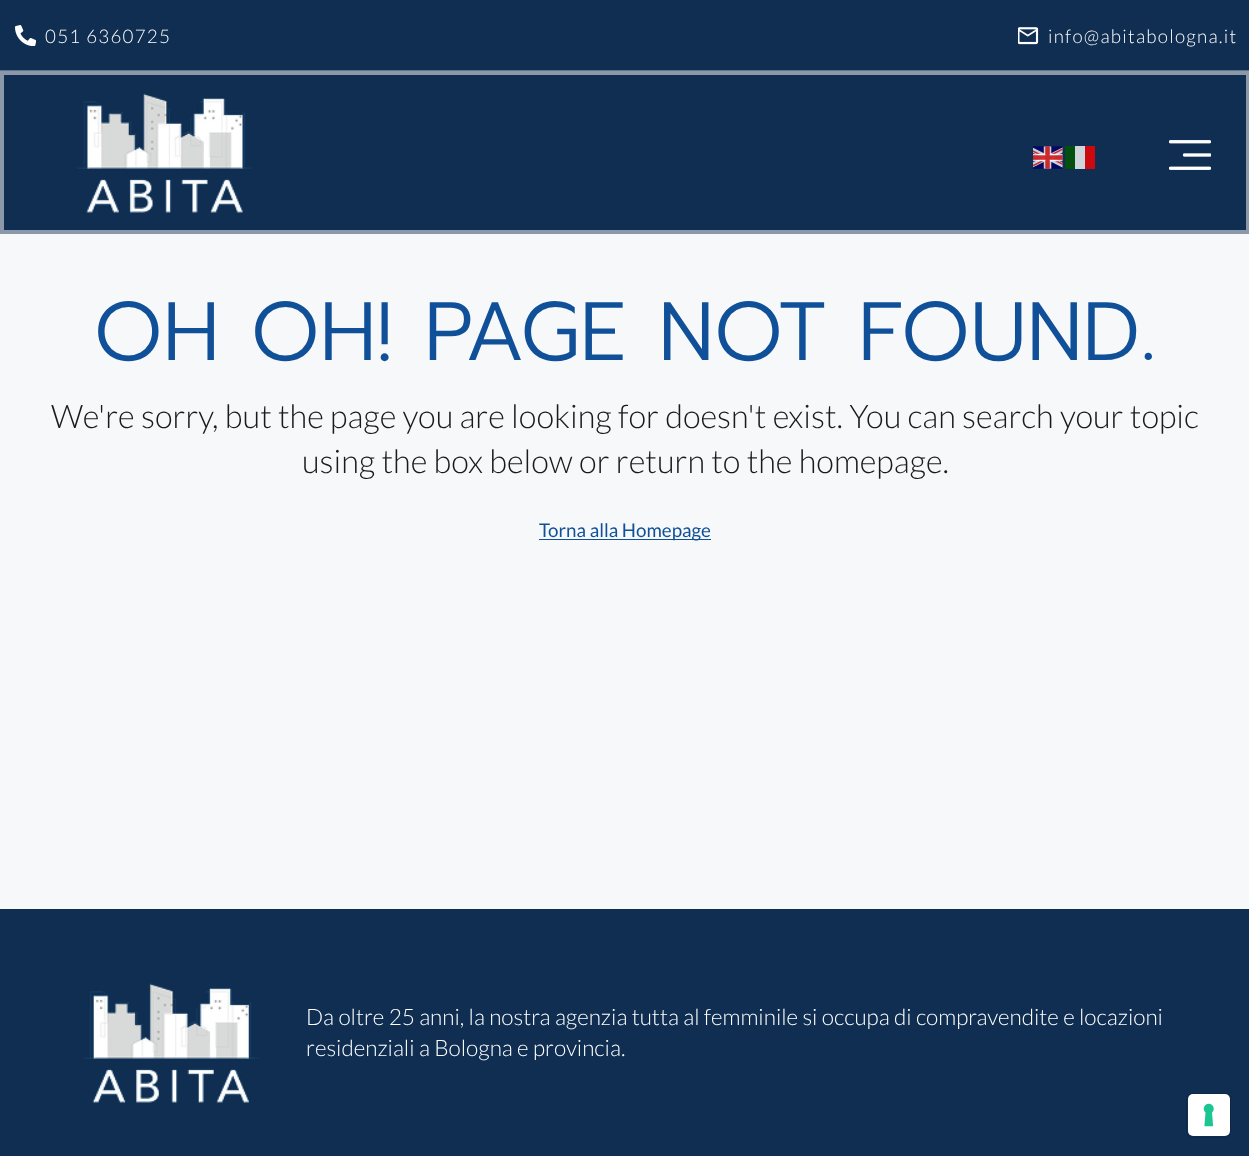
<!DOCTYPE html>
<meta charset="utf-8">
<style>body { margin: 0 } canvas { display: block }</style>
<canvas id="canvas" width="1249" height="1156"></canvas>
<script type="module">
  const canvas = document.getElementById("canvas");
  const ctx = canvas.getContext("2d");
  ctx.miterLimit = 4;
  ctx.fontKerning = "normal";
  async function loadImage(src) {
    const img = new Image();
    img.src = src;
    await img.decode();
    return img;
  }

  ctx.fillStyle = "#f7f8f9";
  ctx.fillRect(0, 0, 1249, 1156);
  ctx.fillStyle = "#0f2e51";
  ctx.fillRect(0, 0, 1249, 230);
  ctx.fillStyle = "#61758c";
  ctx.fillRect(0, 70, 1249, 1);
  ctx.drawImage(await loadImage("img1.png"), 15, 25, 21, 21);
  ctx.letterSpacing = "1.25px";
  ctx.font = "300 18.75px Lato";
  ctx.fillStyle = "#ffffff";
  ctx.fillText("051 6360725", 45, 43);
  ctx.drawImage(await loadImage("img2.png"), 1018, 27, 21, 18);
  ctx.fillText("info@abitabologna.it", 1048, 43);
  ctx.strokeStyle = "#8a98aa";
  ctx.lineWidth = 4;
  ctx.strokeRect(2, 73, 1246, 159);
  ctx.drawImage(await loadImage("img3.png"), 77, 93, 175, 120);
  ctx.drawImage(await loadImage("img4.png"), 1033, 146, 30, 23);
  ctx.fillStyle = "#034f10";
  ctx.fillRect(1065, 146, 10, 23);
  ctx.fillStyle = "#cfd5dc";
  ctx.fillRect(1075, 146, 10, 23);
  ctx.fillStyle = "#cd0910";
  ctx.fillRect(1085, 146, 10, 23);
  ctx.drawImage(await loadImage("img5.png"), 1169, 140, 42, 30);
  ctx.letterSpacing = "0px";
  ctx.font = "300 82.5px Prompt";
  ctx.fillStyle = "#105099";
  ctx.fillText("OH OH! PAGE NOT FOUND.", 94, 360);
  ctx.font = "300 32.5px Lato";
  ctx.fillStyle = "#1a1a1a";
  ctx.fillText("We're sorry, but the page you are looking for doesn't exist. You can search your topic", 51, 428);
  ctx.fillText("using the box below or return to the homepage.", 302, 473);
  ctx.fillStyle = "#105099";
  ctx.fillRect(539, 539, 172, 1);
  ctx.font = "18.75px Lato";
  ctx.fillText("Torna alla Homepage", 539, 537);
  ctx.fillStyle = "#0f2e51";
  ctx.fillRect(0, 909, 1249, 247);
  ctx.drawImage(await loadImage("img6.png"), 83, 983, 176, 120);
  ctx.font = "300 22.5px Lato";
  ctx.fillStyle = "#ffffff";
  ctx.fillText("Da oltre 25 anni, la nostra agenzia tutta al femminile si occupa di compravendite e locazioni", 306, 1025);
  ctx.fillText("residenziali a Bologna e provincia.", 306, 1056);
  ctx.beginPath();
  ctx.roundRect(1186.5, 1093.5, 44, 44, 5.5);
  ctx.strokeStyle = "#0d2745";
  ctx.lineWidth = 1;
  ctx.stroke();
  ctx.beginPath();
  ctx.roundRect(1188, 1094, 42, 42, 5);
  ctx.fill();
  ctx.drawImage(await loadImage("img7.png"), 1203, 1103, 11, 24);
</script>
